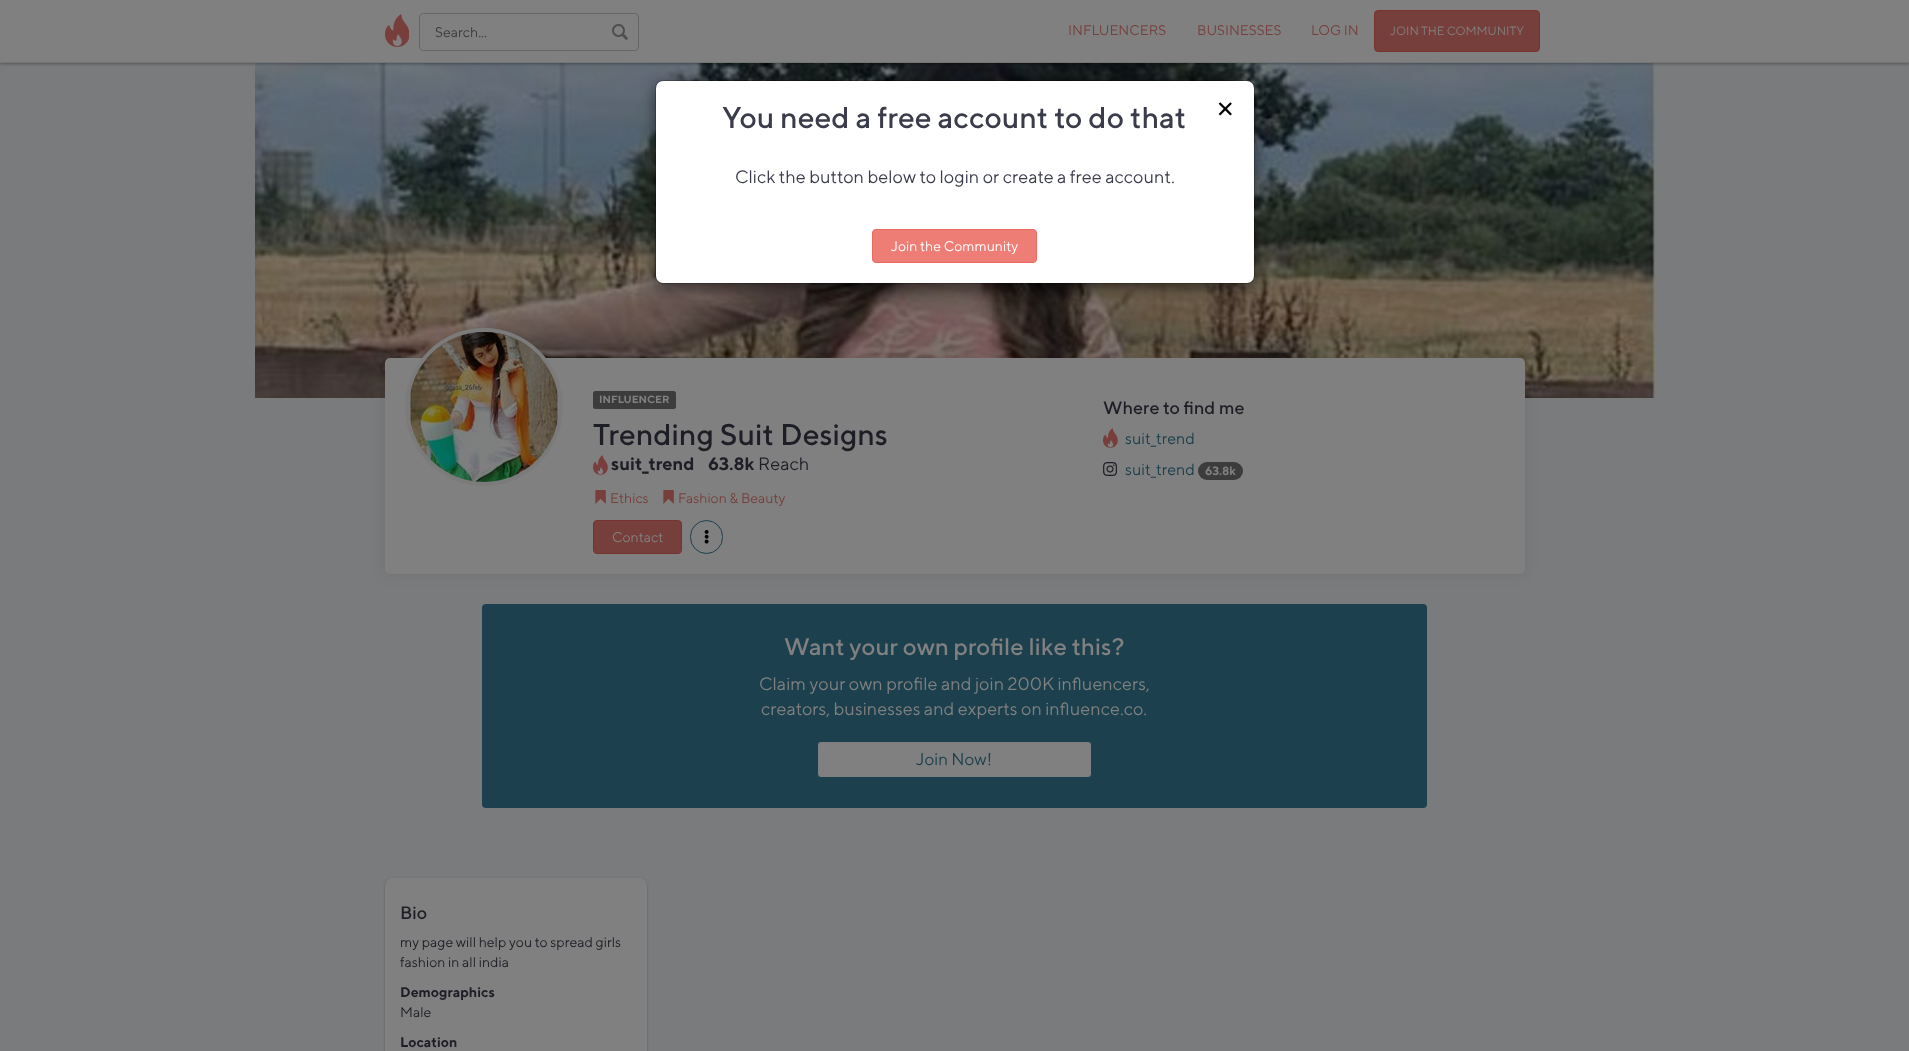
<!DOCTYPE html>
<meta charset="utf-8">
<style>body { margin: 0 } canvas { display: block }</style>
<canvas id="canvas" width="1909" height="1051"></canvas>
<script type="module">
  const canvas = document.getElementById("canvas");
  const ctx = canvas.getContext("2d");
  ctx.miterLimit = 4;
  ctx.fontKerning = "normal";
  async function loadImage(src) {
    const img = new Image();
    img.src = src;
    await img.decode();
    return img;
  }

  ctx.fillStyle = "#797b7c";
  ctx.fillRect(0, 0, 1909, 1051);
  ctx.drawImage(await loadImage("img3.png"), 255, 63, 1400, 335);
  ctx.fillStyle = "rgba(0, 0, 0, 0.3)";
  ctx.filter = "blur(1.5px)";
  ctx.beginPath();
  ctx.rect(0, 1, 1909, 63);
  ctx.fill();
  ctx.filter = "none";
  ctx.fillStyle = "#808080";
  ctx.fillRect(0, 0, 1909, 62);
  ctx.fillStyle = "#747474";
  ctx.fillRect(0, 62, 1909, 1);
  ctx.drawImage(await loadImage("img1.png"), 385, 14, 24, 33);
  ctx.drawImage(await loadImage("img2.png"), 612, 24, 16, 16);
  ctx.beginPath();
  ctx.roundRect(419.5, 13.5, 219, 37, 3.5);
  ctx.strokeStyle = "#666666";
  ctx.stroke();
  ctx.font = "14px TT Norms";
  ctx.fillStyle = "#3b3b3b";
  ctx.fillText("Search...", 435, 37);
  ctx.fillStyle = "#773f3b";
  ctx.fillText("INFLUENCERS", 1068, 35);
  ctx.fillText("BUSINESSES", 1197, 35);
  ctx.fillText("LOG IN", 1311, 35);
  ctx.beginPath();
  ctx.roundRect(1374.5, 10.5, 165, 41, 3.5);
  ctx.fill();
  ctx.strokeStyle = "#763430";
  ctx.stroke();
  ctx.font = "12px TT Norms";
  ctx.fillStyle = "#808080";
  ctx.fillText("JOIN THE COMMUNITY", 1390, 35);
  ctx.fillStyle = "rgba(0, 0, 0, 0.08)";
  ctx.filter = "blur(7.5px)";
  ctx.beginPath();
  ctx.roundRect(385, 358, 1140, 216, 5);
  ctx.fill();
  ctx.filter = "none";
  ctx.fillStyle = "#808080";
  ctx.beginPath();
  ctx.roundRect(385, 358, 1140, 216, 5);
  ctx.fill();
  ctx.beginPath();
  ctx.arc(484, 407, 77, 0, Math.PI * 2);
  ctx.strokeStyle = "#7b7b7b";
  ctx.lineWidth = 4;
  ctx.stroke();
  ctx.drawImage(await loadImage("img4.png"), 409, 332, 150, 150);
  ctx.fillStyle = "#3c3c3c";
  ctx.beginPath();
  ctx.roundRect(593, 391, 83, 18, 2.5);
  ctx.fill();
  ctx.font = "bold 10.5px TT Norms";
  ctx.fillStyle = "#808080";
  ctx.fillText("INFLUENCER", 599, 403);
  ctx.font = "500 30px TT Norms";
  ctx.fillStyle = "#1e1e26";
  ctx.fillText("Trending Suit Designs", 593, 445);
  ctx.drawImage(await loadImage("img5.png"), 593, 455, 15, 20);
  ctx.font = "bold 18px TT Norms";
  ctx.fillText("suit_trend", 611, 470);
  ctx.fillText("63.8k", 708, 470);
  ctx.font = "18px TT Norms";
  ctx.fillText("Reach", 758, 470);
  ctx.drawImage(await loadImage("img6.png"), 595, 490, 11, 14);
  ctx.font = "14px TT Norms";
  ctx.fillStyle = "#773f3b";
  ctx.fillText("Ethics", 610, 503);
  ctx.drawImage(await loadImage("img6.png"), 663, 490, 11, 14);
  ctx.fillText("Fashion & Beauty", 678, 503);
  ctx.beginPath();
  ctx.roundRect(593.5, 520.5, 88, 33, 3.5);
  ctx.fill();
  ctx.strokeStyle = "#763430";
  ctx.lineWidth = 1;
  ctx.stroke();
  ctx.fillStyle = "#808080";
  ctx.fillText("Contact", 612, 542);
  ctx.beginPath();
  ctx.roundRect(690.5, 520.5, 32, 33, 16);
  ctx.strokeStyle = "#1c404e";
  ctx.stroke();
  ctx.drawImage(await loadImage("img7.png"), 704, 530, 5, 14);
  ctx.font = "500 18px TT Norms";
  ctx.fillStyle = "#1e1e26";
  ctx.fillText("Where to find me", 1103, 414);
  ctx.drawImage(await loadImage("img5.png"), 1103, 428, 15, 20);
  ctx.font = "16px TT Norms";
  ctx.fillStyle = "#1c404e";
  ctx.fillText("suit_trend", 1125, 444);
  ctx.drawImage(await loadImage("img8.png"), 1103, 462, 15, 14);
  ctx.fillText("suit_trend", 1125, 475);
  ctx.fillStyle = "#3c3c3c";
  ctx.beginPath();
  ctx.roundRect(1198, 462, 45, 18, 9);
  ctx.fill();
  ctx.font = "bold 12px TT Norms";
  ctx.fillStyle = "#808080";
  ctx.fillText("63.8k", 1205, 475);
  ctx.fillStyle = "#1c404e";
  ctx.beginPath();
  ctx.roundRect(482, 604, 945, 204, 4);
  ctx.fill();
  ctx.font = "500 24px TT Norms";
  ctx.fillStyle = "#808080";
  ctx.fillText("Want your own profile like this?", 784, 655);
  ctx.font = "18px TT Norms";
  ctx.fillText("Claim your own profile and join 200K influencers,", 759, 690);
  ctx.fillText("creators, businesses and experts on influence.co.", 761, 715);
  ctx.beginPath();
  ctx.roundRect(817.5, 741.5, 274, 36, 3.5);
  ctx.fill();
  ctx.stroke();
  ctx.font = "17px TT Norms";
  ctx.fillStyle = "#1c404e";
  ctx.fillText("Join Now!", 916, 765);
  ctx.fillStyle = "rgba(0, 0, 0, 0.2)";
  ctx.filter = "blur(1.5px)";
  ctx.beginPath();
  ctx.roundRect(385, 879, 262, 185, 8);
  ctx.fill();
  ctx.filter = "none";
  ctx.fillStyle = "#808080";
  ctx.beginPath();
  ctx.roundRect(385, 878, 262, 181, 8);
  ctx.fill();
  ctx.font = "500 18px TT Norms";
  ctx.fillStyle = "#1e1e26";
  ctx.fillText("Bio", 400, 919);
  ctx.font = "14px TT Norms";
  ctx.fillText("my page will help you to spread girls", 400, 947);
  ctx.fillText("fashion in all india", 400, 967);
  ctx.font = "bold 14px TT Norms";
  ctx.fillText("Demographics", 400, 997);
  ctx.font = "14px TT Norms";
  ctx.fillText("Male", 400, 1017);
  ctx.font = "bold 14px TT Norms";
  ctx.fillText("Location", 400, 1047);
  ctx.fillStyle = "rgba(0, 0, 0, 0.5)";
  ctx.filter = "blur(7.5px)";
  ctx.beginPath();
  ctx.roundRect(655, 85, 600, 204, 8);
  ctx.fill();
  ctx.filter = "none";
  ctx.fillStyle = "#ffffff";
  ctx.beginPath();
  ctx.roundRect(656, 81, 598, 202, 7);
  ctx.fill();
  ctx.beginPath();
  ctx.roundRect(655.5, 80.5, 599, 203, 7.5);
  ctx.strokeStyle = "rgba(0, 0, 0, 0.2)";
  ctx.stroke();
  ctx.font = "500 30px TT Norms";
  ctx.fillStyle = "#3b3c4b";
  ctx.fillText("You need a free account to do that", 722, 128);
  ctx.font = "18px TT Norms";
  ctx.fillText("Click the button below to login or create a free account.", 735, 183);
  ctx.fillStyle = "#ee7d76";
  ctx.beginPath();
  ctx.roundRect(872.5, 229.5, 164, 33, 3.5);
  ctx.fill();
  ctx.strokeStyle = "#eb675f";
  ctx.stroke();
  ctx.font = "14px TT Norms";
  ctx.fillStyle = "#ffffff";
  ctx.fillText("Join the Community", 891, 251);
  ctx.font = "36px TT Norms";
  ctx.fillStyle = "#000000";
  ctx.fillText("×", 1217, 120);
</script>
